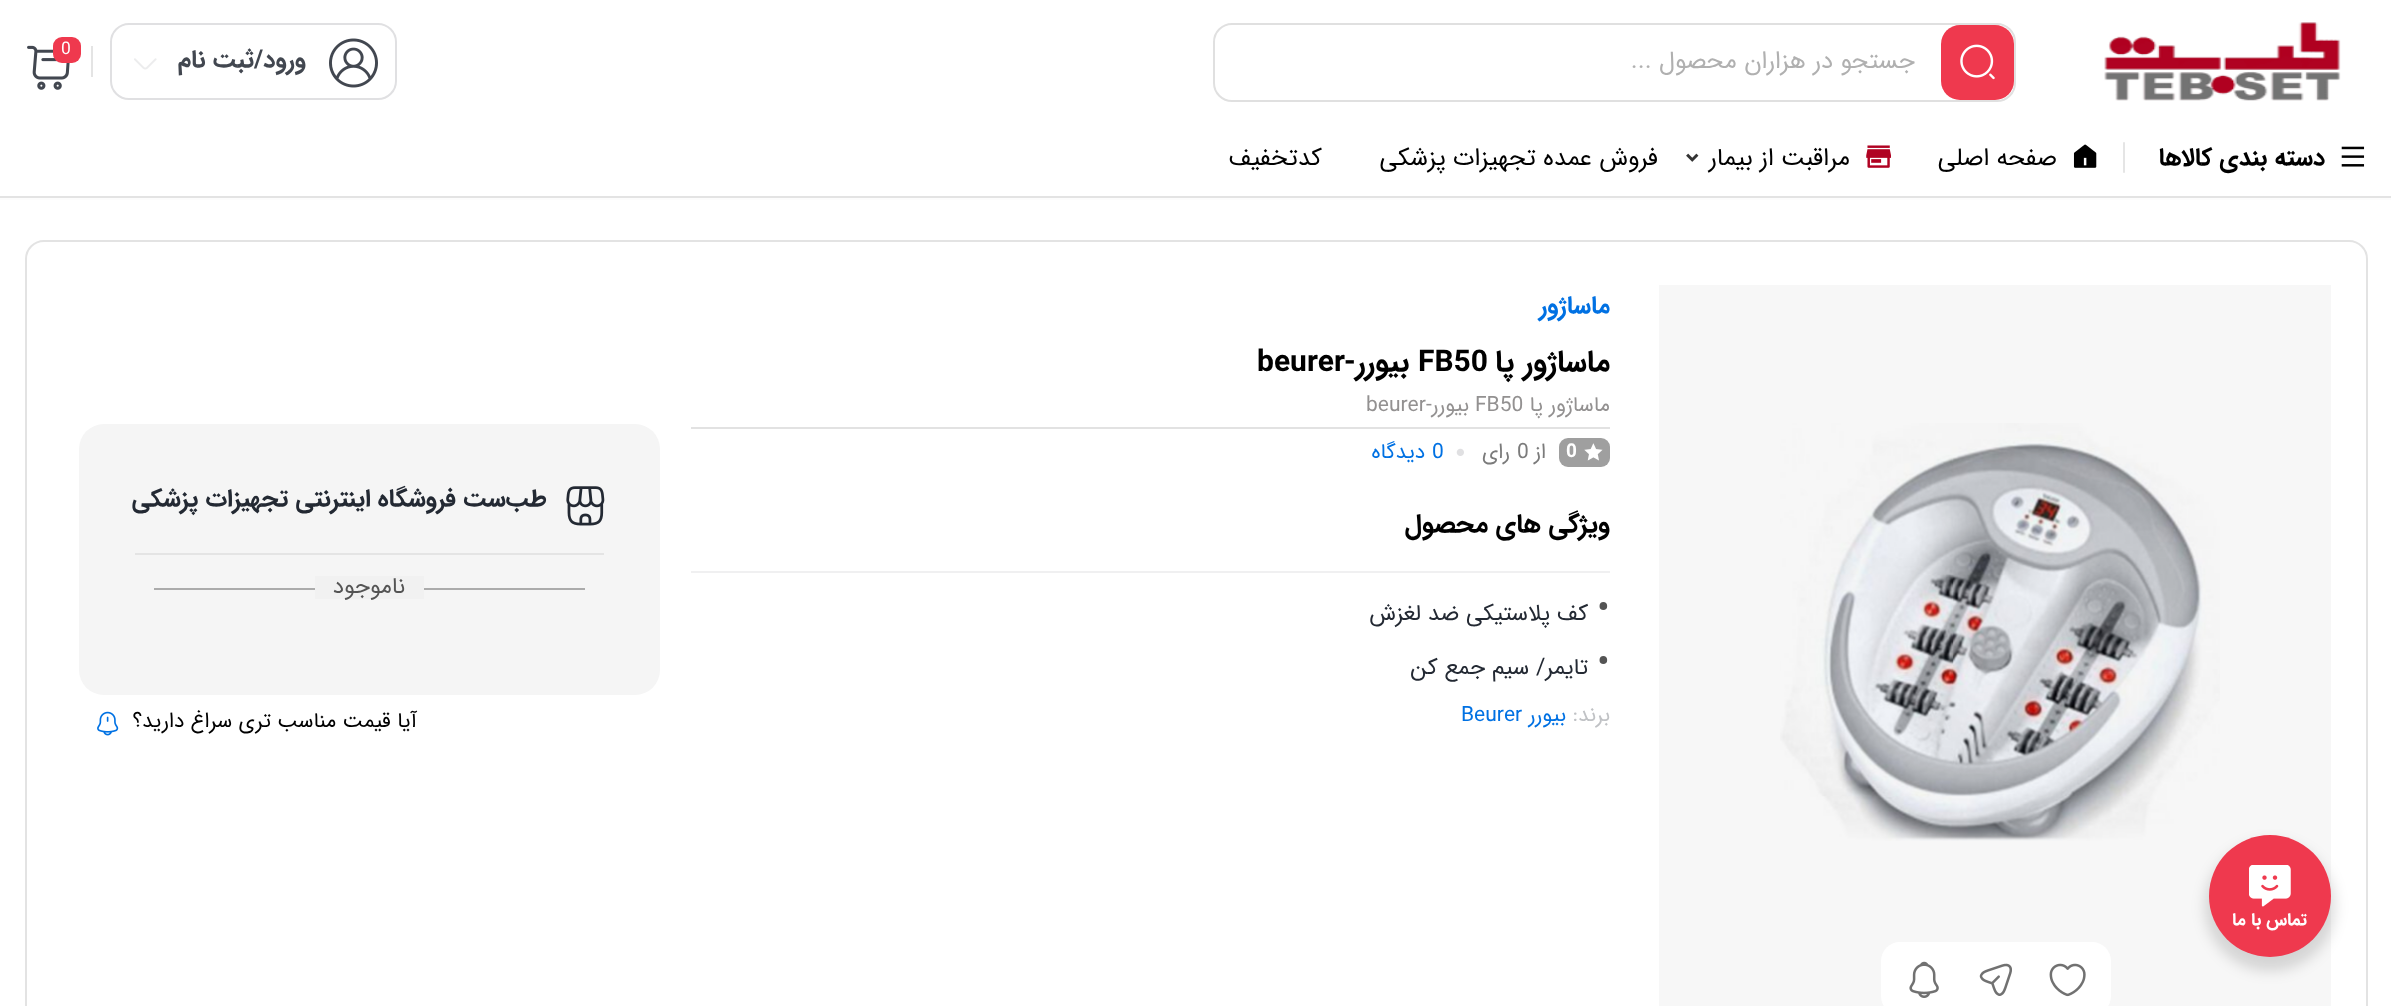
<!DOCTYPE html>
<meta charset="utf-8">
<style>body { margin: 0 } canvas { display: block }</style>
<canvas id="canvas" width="2391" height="1006"></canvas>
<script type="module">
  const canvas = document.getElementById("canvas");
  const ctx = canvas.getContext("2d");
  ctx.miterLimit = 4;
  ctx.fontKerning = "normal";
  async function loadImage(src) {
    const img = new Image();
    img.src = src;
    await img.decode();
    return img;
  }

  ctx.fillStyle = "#ffffff";
  ctx.fillRect(0, 0, 2391, 1006);
  ctx.drawImage(await loadImage("img1.png"), 2104, 22, 237, 79);
  ctx.beginPath();
  ctx.roundRect(1214, 24, 801, 77, 18);
  ctx.strokeStyle = "#e0e0e0";
  ctx.lineWidth = 2;
  ctx.stroke();
  ctx.fillStyle = "#ef394e";
  ctx.beginPath();
  ctx.roundRect(1941, 25, 73, 75, 19);
  ctx.fill();
  ctx.drawImage(await loadImage("img2.png"), 1960, 44, 35, 36);
  ctx.direction = "rtl";
  ctx.font = "24.5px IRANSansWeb";
  ctx.fillStyle = "#b0b0b0";
  ctx.fillText("جستجو در هزاران محصول ...", 1915, 68);
  ctx.beginPath();
  ctx.roundRect(111, 24, 285, 75, 18);
  ctx.strokeStyle = "#e0e0e2";
  ctx.stroke();
  ctx.drawImage(await loadImage("img3.png"), 329, 38, 49, 50);
  ctx.font = "bold 24.5px IRANSansWeb";
  ctx.fillStyle = "#424750";
  ctx.fillText("ورود/ثبت نام", 306, 67);
  ctx.drawImage(await loadImage("img4.png"), 134, 58, 23, 12);
  ctx.fillStyle = "#e4e4e4";
  ctx.fillRect(91, 46, 2, 31);
  ctx.drawImage(await loadImage("img5.png"), 27, 45, 43, 45);
  ctx.fillStyle = "#ef394e";
  ctx.beginPath();
  ctx.roundRect(53, 37, 28, 26, 9);
  ctx.fill();
  ctx.direction = "ltr";
  ctx.font = "17.5px IRANSansWeb";
  ctx.fillStyle = "#ffffff";
  ctx.fillText("0", 61, 54);
  ctx.fillStyle = "#fcfcfc";
  ctx.fillRect(0, 198, 2391, 2);
  ctx.fillStyle = "#e3e3e3";
  ctx.fillRect(0, 196, 2391, 2);
  ctx.drawImage(await loadImage("img6.png"), 2341, 146, 24, 21);
  ctx.direction = "rtl";
  ctx.font = "bold 24.5px IRANSansWeb";
  ctx.fillStyle = "#000000";
  ctx.fillText("دسته بندی کالاها", 2325, 165);
  ctx.fillStyle = "#e5e5e5";
  ctx.beginPath();
  ctx.roundRect(2123, 142, 2, 31, 1);
  ctx.fill();
  ctx.drawImage(await loadImage("img7.png"), 2073, 144, 24, 24);
  ctx.font = "24.5px IRANSansWeb";
  ctx.fillStyle = "#000000";
  ctx.fillText("صفحه اصلی", 2057, 165);
  ctx.drawImage(await loadImage("img8.png"), 1866, 145, 25, 23);
  ctx.fillText("مراقبت از بیمار", 1850, 165);
  ctx.drawImage(await loadImage("img9.png"), 1686, 153, 13, 9);
  ctx.fillText("فروش عمده تجهیزات پزشکی", 1658, 165);
  ctx.fillText("کدتخفیف", 1322, 165);
  ctx.beginPath();
  ctx.roundRect(26, 241, 2341, 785, 18);
  ctx.strokeStyle = "#e3e3e3";
  ctx.stroke();
  ctx.drawImage(await loadImage("img10.png"), 1780, 423, 440, 418);
  ctx.fillStyle = "rgba(0, 0, 0, 0.03)";
  ctx.fillRect(1659, 285, 672, 721);
  ctx.fillStyle = "#ffffff";
  ctx.beginPath();
  ctx.roundRect(1881, 942, 230, 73, 19);
  ctx.fill();
  ctx.drawImage(await loadImage("img11.png"), 2049, 963, 37, 34);
  ctx.drawImage(await loadImage("img12.png"), 1979, 963, 33, 33);
  ctx.drawImage(await loadImage("img13.png"), 1909, 961, 30, 37);
  ctx.font = "bold 24.5px IRANSansWeb";
  ctx.fillStyle = "#0071e3";
  ctx.fillText("ماساژور", 1610, 313);
  ctx.font = "bold 30px IRANSansWeb";
  ctx.fillStyle = "#000000";
  ctx.fillText("ماساژور پا", 1610, 371);
  ctx.direction = "ltr";
  ctx.fillText("FB50", 1418, 371);
  ctx.direction = "rtl";
  ctx.fillText("بیورر-", 1409, 371);
  ctx.direction = "ltr";
  ctx.fillText("beurer", 1257, 371);
  ctx.direction = "rtl";
  ctx.font = "21px IRANSansWeb";
  ctx.fillStyle = "#939191";
  ctx.fillText("ماساژور پا", 1610, 411);
  ctx.direction = "ltr";
  ctx.fillText("FB50", 1475, 411);
  ctx.fillText("beurer", 1366, 411);
  ctx.direction = "rtl";
  ctx.fillText("بیورر-", 1469, 411);
  ctx.fillStyle = "#e2e2e2";
  ctx.fillRect(691, 427, 919, 2);
  ctx.fillStyle = "#9f9f9f";
  ctx.beginPath();
  ctx.roundRect(1559, 438, 51, 29, 9);
  ctx.fill();
  ctx.drawImage(await loadImage("img14.png"), 1584, 443, 19, 18);
  ctx.direction = "ltr";
  ctx.font = "bold 19px IRANSansWeb";
  ctx.fillStyle = "#ffffff";
  ctx.fillText("0", 1566, 457);
  ctx.direction = "rtl";
  ctx.font = "21px IRANSansWeb";
  ctx.fillStyle = "#7b7b7b";
  ctx.fillText("از", 1546, 458);
  ctx.direction = "ltr";
  ctx.fillText("0", 1517, 458);
  ctx.direction = "rtl";
  ctx.fillText("رای", 1510, 458);
  ctx.drawImage(await loadImage("img15.png"), 1456, 448, 8, 8);
  ctx.direction = "ltr";
  ctx.fillStyle = "#0071e3";
  ctx.fillText("0", 1432, 458);
  ctx.direction = "rtl";
  ctx.fillText("دیدگاه", 1425, 458);
  ctx.fillStyle = "#f0f0f1";
  ctx.fillRect(691, 571, 919, 2);
  ctx.font = "bold 26.25px IRANSansWeb";
  ctx.fillStyle = "#000000";
  ctx.fillText("ویژگی های محصول", 1610, 532);
  ctx.direction = "ltr";
  ctx.font = "38px IRANSansWeb";
  ctx.fillStyle = "#545454";
  ctx.fillText("•", 1597, 620);
  ctx.direction = "rtl";
  ctx.font = "22.75px IRANSansWeb";
  ctx.fillStyle = "#232933";
  ctx.fillText("کف پلاستیکی ضد لغزش", 1588, 620);
  ctx.direction = "ltr";
  ctx.font = "38px IRANSansWeb";
  ctx.fillStyle = "#545454";
  ctx.fillText("•", 1597, 674);
  ctx.direction = "rtl";
  ctx.font = "22.75px IRANSansWeb";
  ctx.fillStyle = "#232933";
  ctx.fillText("تایمر/ سیم جمع کن", 1588, 674);
  ctx.font = "21px IRANSansWeb";
  ctx.fillStyle = "#c0c2c5";
  ctx.fillText("برند:", 1610, 721);
  ctx.fillStyle = "#0071e3";
  ctx.fillText("بیورر", 1566, 721);
  ctx.direction = "ltr";
  ctx.fillText("Beurer", 1461, 721);
  ctx.fillStyle = "#f5f5f5";
  ctx.beginPath();
  ctx.roundRect(79, 424, 581, 271, 25);
  ctx.fill();
  ctx.drawImage(await loadImage("img16.png"), 566, 486, 39, 40);
  ctx.direction = "rtl";
  ctx.font = "bold 24.5px IRANSansWeb";
  ctx.fillStyle = "#232933";
  ctx.fillText("طب‌ست فروشگاه اینترنتی تجهیزات پزشکی", 547, 506);
  ctx.fillStyle = "#e4e4e4";
  ctx.fillRect(135, 553, 469, 2);
  ctx.fillStyle = "#ababab";
  ctx.fillRect(154, 588, 431, 2);
  ctx.fillStyle = "#f1f1f1";
  ctx.fillRect(315, 576, 109, 23);
  ctx.font = "22.75px IRANSansWeb";
  ctx.fillStyle = "#545454";
  ctx.fillText("ناموجود", 405, 593);
  ctx.font = "21px IRANSansWeb";
  ctx.fillStyle = "#000000";
  ctx.fillText("آیا قیمت مناسب تری سراغ دارید؟", 417, 727);
  ctx.drawImage(await loadImage("img17.png"), 97, 711, 22, 25);
  ctx.fillStyle = "rgba(0, 0, 0, 0.14)";
  ctx.filter = "blur(7px)";
  ctx.beginPath();
  ctx.roundRect(2205, 842, 130, 129, 64.5);
  ctx.fill();
  ctx.filter = "none";
  ctx.fillStyle = "#ef394e";
  ctx.beginPath();
  ctx.arc(2270, 896, 61, 0, Math.PI * 2);
  ctx.fill();
  ctx.drawImage(await loadImage("img18.png"), 2249, 865, 42, 42);
  ctx.font = "bold 17.5px IRANSansWeb";
  ctx.fillStyle = "#ffffff";
  ctx.fillText("تماس با ما", 2307, 925);
</script>
